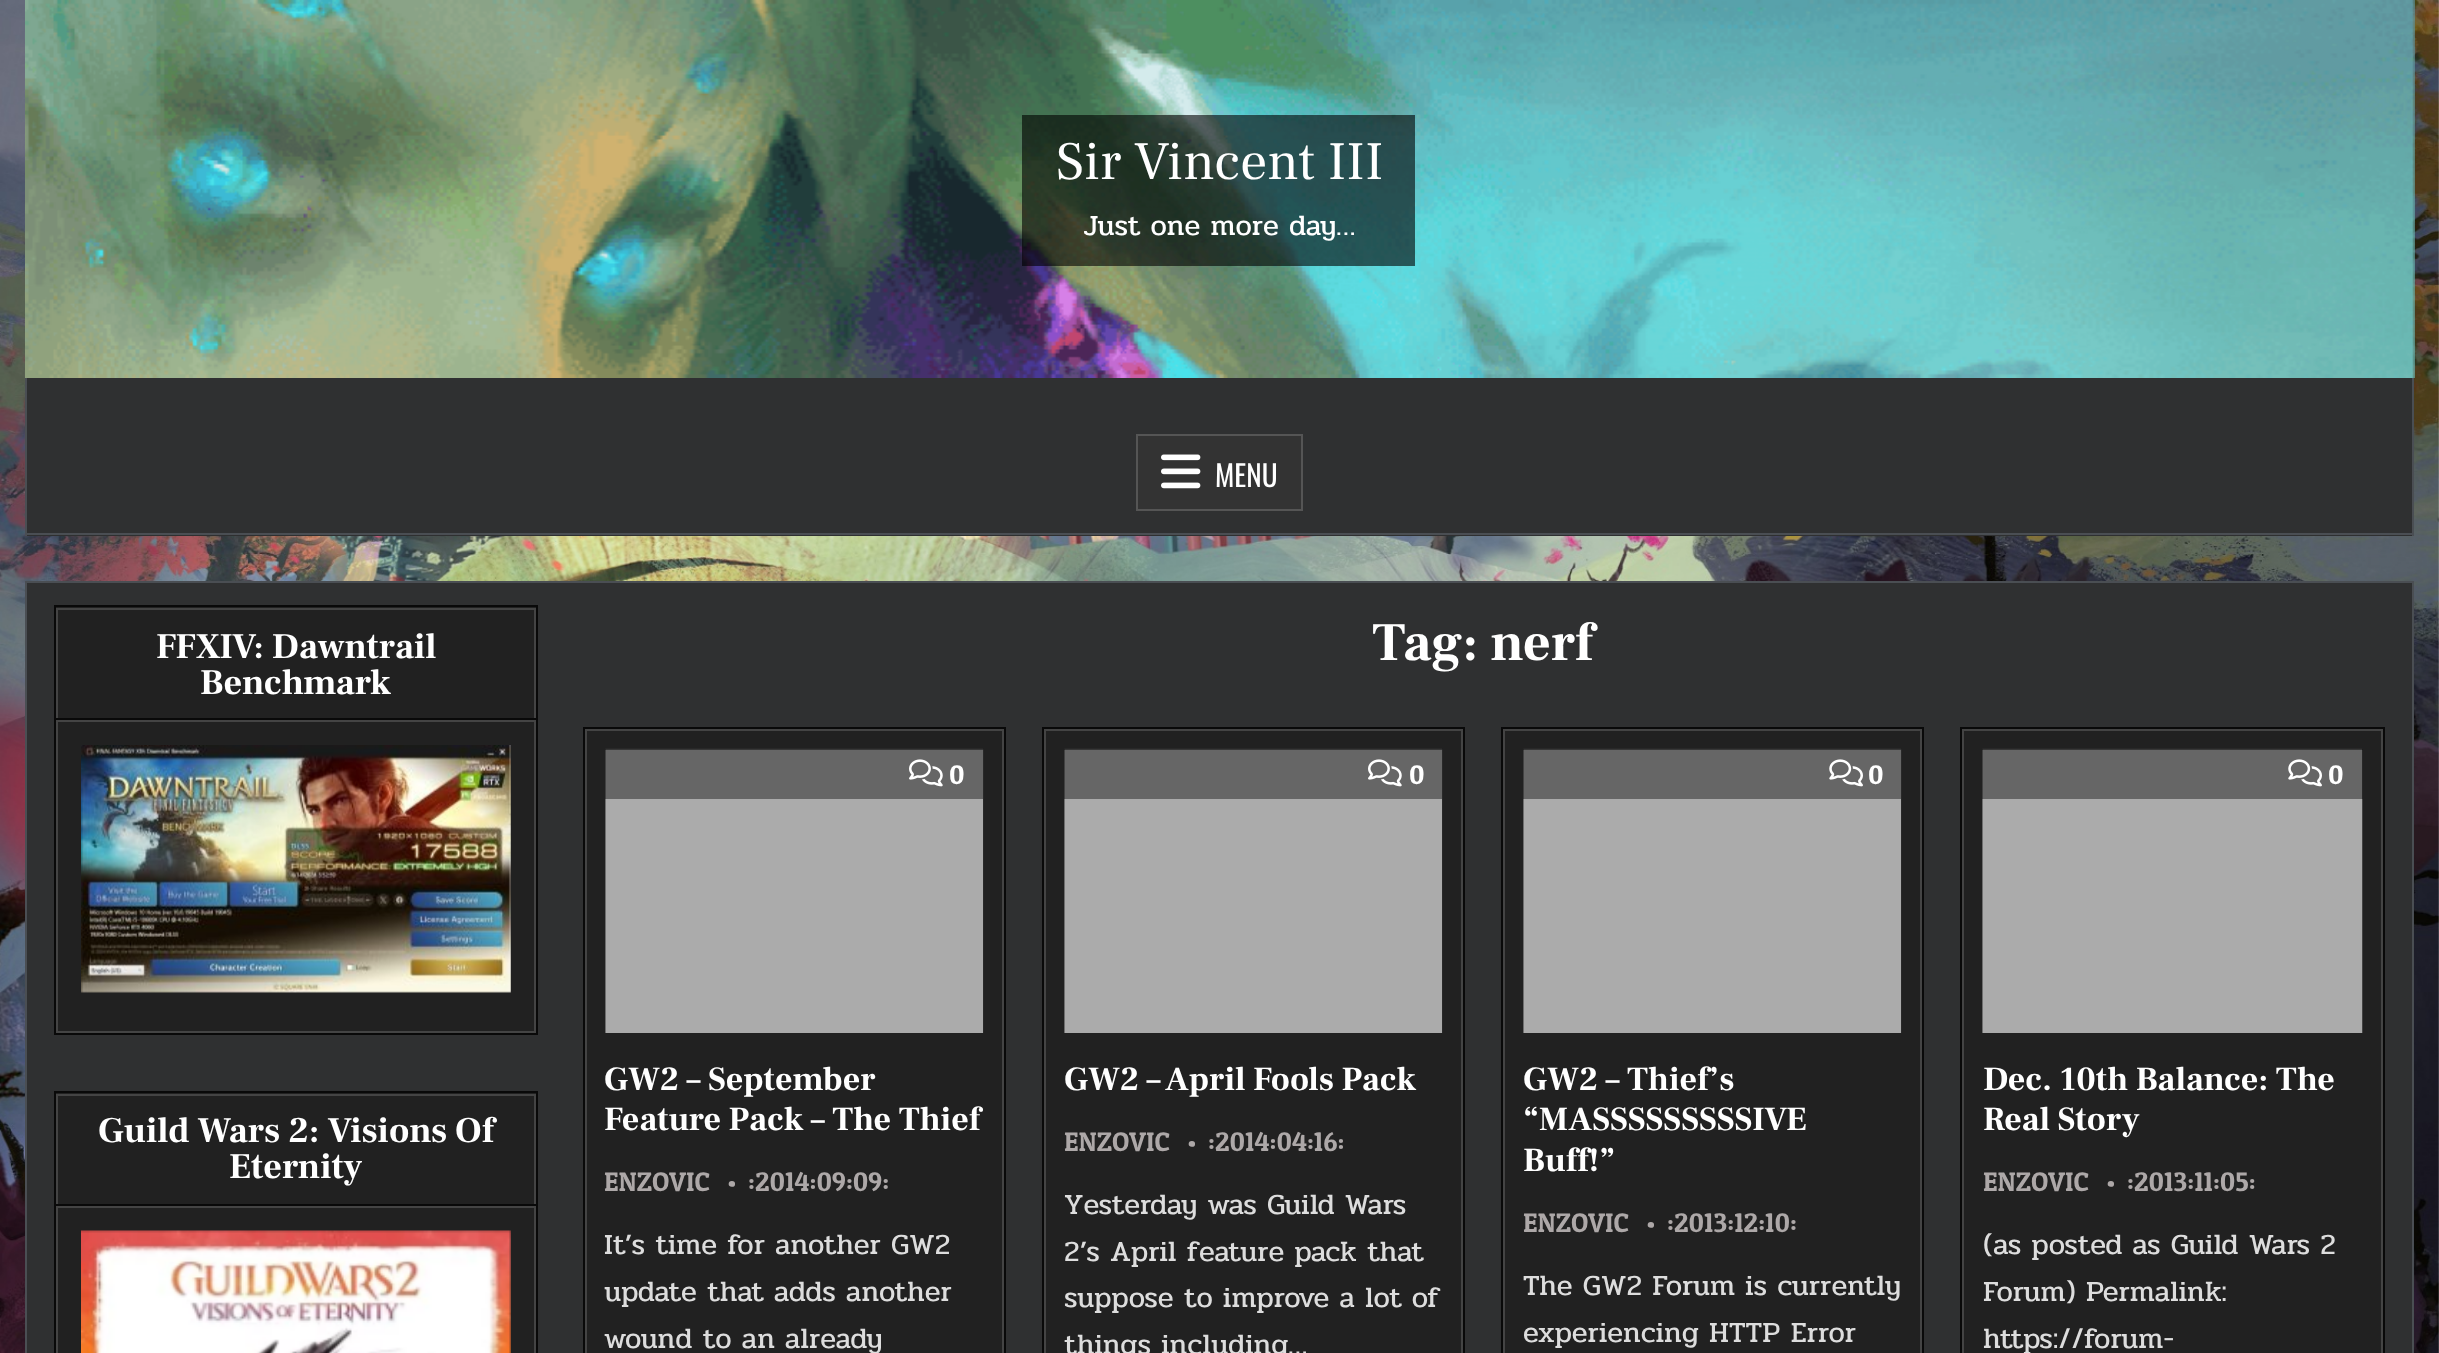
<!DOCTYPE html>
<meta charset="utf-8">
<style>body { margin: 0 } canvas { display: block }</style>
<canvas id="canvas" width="2439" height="1353"></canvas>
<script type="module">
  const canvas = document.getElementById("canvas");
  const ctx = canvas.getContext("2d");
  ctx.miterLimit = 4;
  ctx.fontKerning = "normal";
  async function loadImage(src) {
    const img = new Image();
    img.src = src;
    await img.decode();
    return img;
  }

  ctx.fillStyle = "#ffffff";
  ctx.fillRect(0, 0, 2439, 1353);
  ctx.drawImage(await loadImage("img1.png"), 0, 0, 2439, 1353);
  ctx.drawImage(await loadImage("img2.png"), 25, 0, 2390, 378);
  ctx.fillStyle = "rgba(0, 0, 0, 0.6)";
  ctx.fillRect(1022, 115, 393, 151);
  ctx.font = "54px Frank Ruhl Libre";
  ctx.fillStyle = "#ffffff";
  ctx.fillText("Sir Vincent III", 1056, 179);
  ctx.font = "29.25px Pridi";
  ctx.fillText("Just one more day…", 1084, 235);
  ctx.fillStyle = "#2f3031";
  ctx.fillRect(27, 378, 2385, 158);
  ctx.fillStyle = "#4a4e53";
  ctx.fillRect(2412, 378, 2, 158);
  ctx.fillRect(25, 533, 2389, 2);
  ctx.fillRect(25, 378, 2, 158);
  ctx.fillStyle = "#333333";
  ctx.beginPath();
  ctx.rect(1137, 435, 165, 75);
  ctx.fill();
  ctx.strokeStyle = "#555555";
  ctx.lineWidth = 2;
  ctx.stroke();
  ctx.drawImage(await loadImage("img3.png"), 1161, 454, 40, 35);
  ctx.font = "29.25px Oswald";
  ctx.fillStyle = "#ffffff";
  ctx.fillText("MENU", 1215, 487);
  ctx.fillStyle = "#2f3031";
  ctx.beginPath();
  ctx.rect(26, 582, 2387, 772);
  ctx.fill();
  ctx.strokeStyle = "#4a4e53";
  ctx.stroke();
  ctx.fillStyle = "#212121";
  ctx.fillRect(56, 607, 480, 424);
  ctx.strokeStyle = "#090909";
  ctx.strokeRect(55, 606, 482, 428);
  ctx.strokeStyle = "#444444";
  ctx.strokeRect(57, 609, 478, 423);
  ctx.fillStyle = "#444444";
  ctx.fillRect(56, 720, 480, 2);
  ctx.fillStyle = "#090909";
  ctx.fillRect(56, 718, 480, 2);
  ctx.font = "bold 36px Frank Ruhl Libre";
  ctx.fillStyle = "#ffffff";
  ctx.fillText("FFXIV: Dawntrail", 156, 658);
  ctx.fillText("Benchmark", 200, 694);
  ctx.drawImage(await loadImage("img4.png"), 81, 745, 430, 248);
  ctx.fillStyle = "#212121";
  ctx.beginPath();
  ctx.rect(55, 1092, 482, 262);
  ctx.fill();
  ctx.strokeStyle = "#090909";
  ctx.stroke();
  ctx.strokeStyle = "#444444";
  ctx.strokeRect(57, 1095, 478, 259);
  ctx.fillStyle = "#444444";
  ctx.fillRect(56, 1206, 480, 2);
  ctx.fillStyle = "#090909";
  ctx.fillRect(56, 1204, 480, 2);
  ctx.fillStyle = "#ffffff";
  ctx.fillText("Guild Wars 2: Visions Of", 98, 1142);
  ctx.fillText("Eternity", 229, 1178);
  ctx.drawImage(await loadImage("img5.png"), 81, 1230, 430, 123);
  ctx.font = "bold 54px Frank Ruhl Libre";
  ctx.fillText("Tag: nerf", 1372, 660);
  ctx.fillStyle = "#212121";
  ctx.fillRect(587, 731, 415, 622);
  ctx.strokeStyle = "#090909";
  ctx.strokeRect(584, 728, 421, 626);
  ctx.strokeStyle = "#444444";
  ctx.strokeRect(586, 730, 417, 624);
  ctx.drawImage(await loadImage("img6.png"), 605, 748, 379, 285);
  ctx.fillStyle = "rgba(0, 0, 0, 0.4)";
  ctx.fillRect(605, 749, 378, 50);
  ctx.drawImage(await loadImage("img7.png"), 909, 759, 34, 28);
  ctx.font = "27px Patua One";
  ctx.fillStyle = "#ffffff";
  ctx.fillText("0", 949, 784);
  ctx.font = "bold 33.75px Frank Ruhl Libre";
  ctx.fillText("GW2 – September", 604, 1090);
  ctx.fillText("Feature Pack – The Thief", 604, 1130);
  ctx.font = "27px Patua One";
  ctx.fillStyle = "#ada8a8";
  ctx.fillText("ENZOVIC", 604, 1191);
  ctx.fillText("•", 727, 1191);
  ctx.fillText(":2014:09:09:", 748, 1191);
  ctx.font = "29.25px Pridi";
  ctx.fillStyle = "#dddddd";
  ctx.fillText("It’s time for another GW2", 604, 1254);
  ctx.fillText("update that adds another", 604, 1301);
  ctx.fillText("wound to an already", 604, 1348);
  ctx.fillStyle = "#212121";
  ctx.fillRect(1046, 731, 415, 622);
  ctx.strokeStyle = "#090909";
  ctx.strokeRect(1043, 728, 421, 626);
  ctx.strokeStyle = "#444444";
  ctx.strokeRect(1045, 730, 417, 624);
  ctx.drawImage(await loadImage("img6.png"), 1064, 748, 379, 285);
  ctx.fillStyle = "rgba(0, 0, 0, 0.4)";
  ctx.fillRect(1064, 749, 378, 50);
  ctx.drawImage(await loadImage("img7.png"), 1368, 759, 34, 28);
  ctx.font = "27px Patua One";
  ctx.fillStyle = "#ffffff";
  ctx.fillText("0", 1409, 784);
  ctx.font = "bold 33.75px Frank Ruhl Libre";
  ctx.fillText("GW2 – April Fools Pack", 1064, 1090);
  ctx.font = "27px Patua One";
  ctx.fillStyle = "#ada8a8";
  ctx.fillText("ENZOVIC", 1064, 1151);
  ctx.fillText("•", 1187, 1151);
  ctx.fillText(":2014:04:16:", 1208, 1151);
  ctx.font = "29.25px Pridi";
  ctx.fillStyle = "#dddddd";
  ctx.fillText("Yesterday was Guild Wars", 1064, 1214);
  ctx.fillText("2’s April feature pack that", 1064, 1261);
  ctx.fillText("suppose to improve a lot of", 1064, 1307);
  ctx.fillText("things including…", 1064, 1354);
  ctx.fillStyle = "#212121";
  ctx.fillRect(1505, 731, 415, 622);
  ctx.strokeStyle = "#090909";
  ctx.strokeRect(1502, 728, 421, 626);
  ctx.strokeStyle = "#444444";
  ctx.strokeRect(1504, 730, 417, 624);
  ctx.drawImage(await loadImage("img6.png"), 1523, 748, 379, 285);
  ctx.fillStyle = "rgba(0, 0, 0, 0.4)";
  ctx.fillRect(1523, 749, 378, 50);
  ctx.drawImage(await loadImage("img8.png"), 1829, 759, 34, 28);
  ctx.font = "27px Patua One";
  ctx.fillStyle = "#ffffff";
  ctx.fillText("0", 1868, 784);
  ctx.font = "bold 33.75px Frank Ruhl Libre";
  ctx.fillText("GW2 – Thief’s", 1523, 1090);
  ctx.fillText("“MASSSSSSSSSIVE", 1523, 1130);
  ctx.fillText("Buff!”", 1523, 1171);
  ctx.font = "27px Patua One";
  ctx.fillStyle = "#ada8a8";
  ctx.fillText("ENZOVIC", 1523, 1232);
  ctx.fillText("•", 1646, 1232);
  ctx.fillText(":2013:12:10:", 1667, 1232);
  ctx.font = "29.25px Pridi";
  ctx.fillStyle = "#dddddd";
  ctx.fillText("The GW2 Forum is currently", 1523, 1295);
  ctx.fillText("experiencing HTTP Error", 1523, 1342);
  ctx.fillStyle = "#212121";
  ctx.fillRect(1964, 731, 417, 622);
  ctx.strokeStyle = "#090909";
  ctx.strokeRect(1961, 728, 423, 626);
  ctx.strokeStyle = "#444444";
  ctx.strokeRect(1963, 730, 419, 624);
  ctx.drawImage(await loadImage("img9.png"), 1982, 748, 381, 285);
  ctx.fillStyle = "rgba(0, 0, 0, 0.4)";
  ctx.fillRect(1982, 749, 381, 50);
  ctx.drawImage(await loadImage("img8.png"), 2288, 759, 34, 28);
  ctx.font = "27px Patua One";
  ctx.fillStyle = "#ffffff";
  ctx.fillText("0", 2328, 784);
  ctx.font = "bold 33.75px Frank Ruhl Libre";
  ctx.fillText("Dec. 10th Balance: The", 1983, 1090);
  ctx.fillText("Real Story", 1983, 1130);
  ctx.font = "27px Patua One";
  ctx.fillStyle = "#ada8a8";
  ctx.fillText("ENZOVIC", 1983, 1191);
  ctx.fillText("•", 2106, 1191);
  ctx.fillText(":2013:11:05:", 2127, 1191);
  ctx.font = "29.25px Pridi";
  ctx.fillStyle = "#dddddd";
  ctx.fillText("(as posted as Guild Wars 2", 1983, 1254);
  ctx.fillText("Forum) Permalink:", 1983, 1301);
  ctx.fillText("https://forum-", 1983, 1348);
</script>
